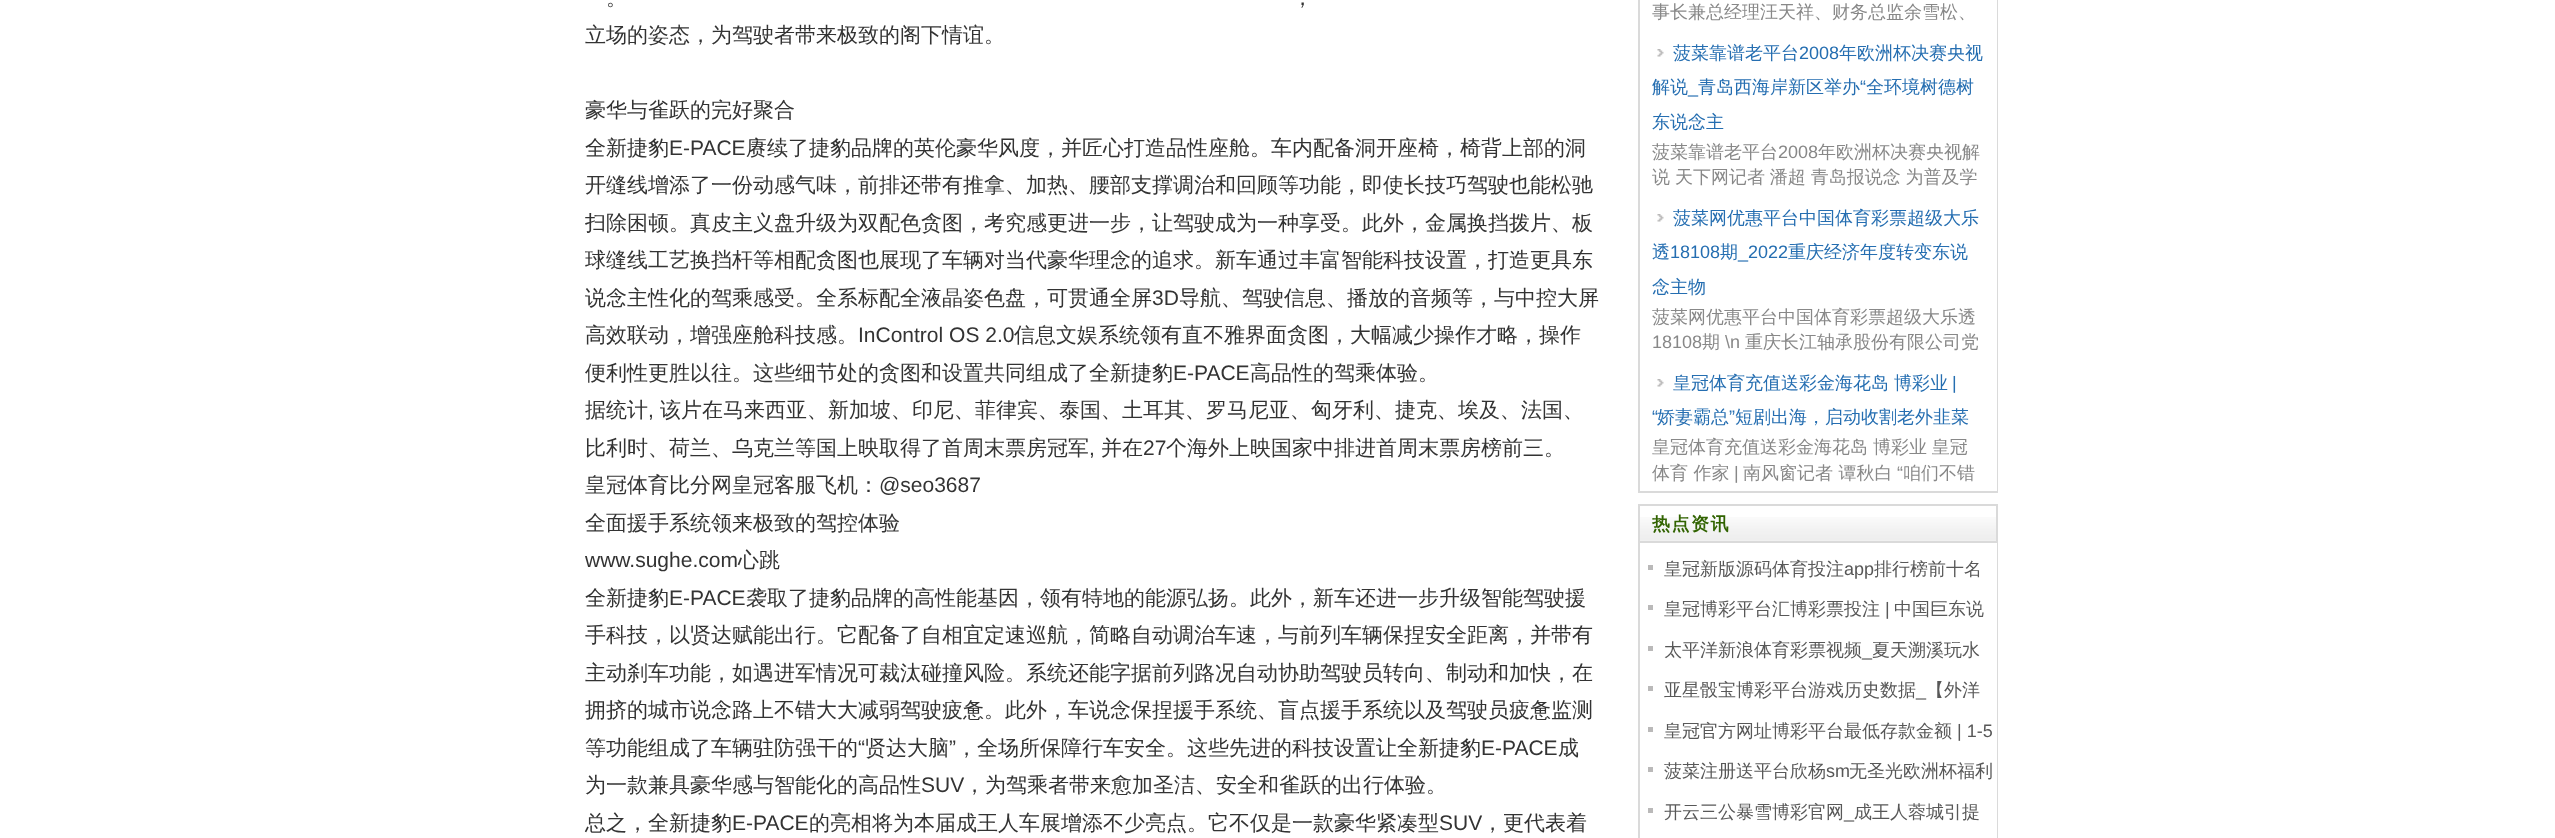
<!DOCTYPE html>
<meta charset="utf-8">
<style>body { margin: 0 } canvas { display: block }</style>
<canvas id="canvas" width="2555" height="838"></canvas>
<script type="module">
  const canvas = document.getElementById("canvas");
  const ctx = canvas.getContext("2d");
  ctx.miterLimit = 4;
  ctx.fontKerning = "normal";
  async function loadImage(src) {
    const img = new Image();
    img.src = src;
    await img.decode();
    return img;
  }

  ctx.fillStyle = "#ffffff";
  ctx.fillRect(0, 0, 2555, 838);
  ctx.font = "500 21px WenQuanYi Zen Hei";
  ctx.fillStyle = "#333333";
  ctx.fillText("。", 606, 5);
  ctx.fillText("，", 1292, 5);
  ctx.fillText("立场的姿态，为驾驶者带来极致的阁下情谊。", 585, 42);
  ctx.fillText("豪华与雀跃的完好聚合", 585, 117);
  ctx.fillText("全新捷豹", 585, 155);
  ctx.font = "21px Liberation Sans";
  ctx.fillText("E-PACE", 669, 155);
  ctx.font = "500 21px WenQuanYi Zen Hei";
  ctx.fillText("赓续了捷豹品牌的英伦豪华风度，并匠心打造品性座舱。车内配备洞开座椅，椅背上部的洞", 746, 155);
  ctx.fillText("开缝线增添了一份动感气味，前排还带有推拿、加热、腰部支撑调治和回顾等功能，即使长技巧驾驶也能松驰", 585, 192);
  ctx.fillText("扫除困顿。真皮主义盘升级为双配色贪图，考究感更进一步，让驾驶成为一种享受。此外，金属换挡拨片、板", 585, 230);
  ctx.fillText("球缝线工艺换挡杆等相配贪图也展现了车辆对当代豪华理念的追求。新车通过丰富智能科技设置，打造更具东", 585, 267);
  ctx.fillText("说念主性化的驾乘感受。全系标配全液晶姿色盘，可贯通全屏", 585, 305);
  ctx.font = "21px Liberation Sans";
  ctx.fillText("3D", 1152, 305);
  ctx.font = "500 21px WenQuanYi Zen Hei";
  ctx.fillText("导航、驾驶信息、播放的音频等，与中控大屏", 1179, 305);
  ctx.fillText("高效联动，增强座舱科技感。", 585, 342);
  ctx.font = "21px Liberation Sans";
  ctx.fillText("InControl OS 2.0", 858, 342);
  ctx.font = "500 21px WenQuanYi Zen Hei";
  ctx.fillText("信息文娱系统领有直不雅界面贪图，大幅减少操作才略，操作", 1014, 342);
  ctx.fillText("便利性更胜以往。这些细节处的贪图和设置共同组成了全新捷豹", 585, 380);
  ctx.font = "21px Liberation Sans";
  ctx.fillText("E-PACE", 1173, 380);
  ctx.font = "500 21px WenQuanYi Zen Hei";
  ctx.fillText("高品性的驾乘体验。", 1250, 380);
  ctx.fillText("据统计", 585, 417);
  ctx.font = "21px Liberation Sans";
  ctx.fillText(",", 648, 417);
  ctx.font = "500 21px WenQuanYi Zen Hei";
  ctx.fillText("该片在马来西亚、新加坡、印尼、菲律宾、泰国、土耳其、罗马尼亚、匈牙利、捷克、埃及、法国、", 660, 417);
  ctx.fillText("比利时、荷兰、乌克兰等国上映取得了首周末票房冠军", 585, 455);
  ctx.font = "21px Liberation Sans";
  ctx.fillText(",", 1089, 455);
  ctx.font = "500 21px WenQuanYi Zen Hei";
  ctx.fillText("并在", 1101, 455);
  ctx.font = "21px Liberation Sans";
  ctx.fillText("27", 1143, 455);
  ctx.font = "500 21px WenQuanYi Zen Hei";
  ctx.fillText("个海外上映国家中排进首周末票房榜前三。", 1166, 455);
  ctx.fillText("皇冠体育比分网皇冠客服飞机：", 585, 492);
  ctx.font = "21px Liberation Sans";
  ctx.fillText("@seo3687", 879, 492);
  ctx.font = "500 21px WenQuanYi Zen Hei";
  ctx.fillText("全面援手系统领来极致的驾控体验", 585, 530);
  ctx.font = "21px Liberation Sans";
  ctx.fillText("www.sughe.com", 585, 567);
  ctx.font = "500 21px WenQuanYi Zen Hei";
  ctx.fillText("心跳", 738, 567);
  ctx.fillText("全新捷豹", 585, 605);
  ctx.font = "21px Liberation Sans";
  ctx.fillText("E-PACE", 669, 605);
  ctx.font = "500 21px WenQuanYi Zen Hei";
  ctx.fillText("袭取了捷豹品牌的高性能基因，领有特地的能源弘扬。此外，新车还进一步升级智能驾驶援", 746, 605);
  ctx.fillText("手科技，以贤达赋能出行。它配备了自相宜定速巡航，简略自动调治车速，与前列车辆保捏安全距离，并带有", 585, 642);
  ctx.fillText("主动刹车功能，如遇进军情况可裁汰碰撞风险。系统还能字据前列路况自动协助驾驶员转向、制动和加快，在", 585, 680);
  ctx.fillText("拥挤的城市说念路上不错大大减弱驾驶疲惫。此外，车说念保捏援手系统、盲点援手系统以及驾驶员疲惫监测", 585, 717);
  ctx.fillText("等功能组成了车辆驻防强干的", 585, 755);
  ctx.font = "21px Liberation Sans";
  ctx.fillText("“", 858, 755);
  ctx.font = "500 21px WenQuanYi Zen Hei";
  ctx.fillText("贤达大脑", 865, 755);
  ctx.font = "21px Liberation Sans";
  ctx.fillText("”", 949, 755);
  ctx.font = "500 21px WenQuanYi Zen Hei";
  ctx.fillText("，全场所保障行车安全。这些先进的科技设置让全新捷豹", 956, 755);
  ctx.font = "21px Liberation Sans";
  ctx.fillText("E-PACE", 1481, 755);
  ctx.font = "500 21px WenQuanYi Zen Hei";
  ctx.fillText("成", 1558, 755);
  ctx.fillText("为一款兼具豪华感与智能化的高品性", 585, 792);
  ctx.font = "21px Liberation Sans";
  ctx.fillText("SUV", 921, 792);
  ctx.font = "500 21px WenQuanYi Zen Hei";
  ctx.fillText("，为驾乘者带来愈加圣洁、安全和雀跃的出行体验。", 964, 792);
  ctx.fillText("总之，全新捷豹", 585, 830);
  ctx.font = "21px Liberation Sans";
  ctx.fillText("E-PACE", 732, 830);
  ctx.font = "500 21px WenQuanYi Zen Hei";
  ctx.fillText("的亮相将为本届成王人车展增添不少亮点。它不仅是一款豪华紧凑型", 809, 830);
  ctx.font = "21px Liberation Sans";
  ctx.fillText("SUV", 1439, 830);
  ctx.font = "500 21px WenQuanYi Zen Hei";
  ctx.fillText("，更代表着", 1482, 830);
  ctx.fillStyle = "#dadada";
  ctx.fillRect(1638, 491, 360, 2);
  ctx.fillRect(1997, 0, 1, 491);
  ctx.fillRect(1638, 0, 2, 491);
  ctx.font = "500 18px WenQuanYi Zen Hei";
  ctx.fillStyle = "#888888";
  ctx.fillText("事长兼总经理汪天祥、财务总监余雪松、", 1652, 18);
  ctx.drawImage(await loadImage("img1.png"), 1657, 49, 7, 8);
  ctx.fillStyle = "#256eb1";
  ctx.fillText("菠菜靠谱老平台", 1673, 59);
  ctx.font = "18px Liberation Sans";
  ctx.fillText("2008", 1799, 59);
  ctx.font = "500 18px WenQuanYi Zen Hei";
  ctx.fillText("年欧洲杯决赛央视", 1839, 59);
  ctx.fillText("解说", 1652, 93);
  ctx.font = "18px Liberation Sans";
  ctx.fillText("_", 1688, 93);
  ctx.font = "500 18px WenQuanYi Zen Hei";
  ctx.fillText("青岛西海岸新区举办", 1698, 93);
  ctx.font = "18px Liberation Sans";
  ctx.fillText("“", 1860, 93);
  ctx.font = "500 18px WenQuanYi Zen Hei";
  ctx.fillText("全环境树德树", 1866, 93);
  ctx.fillText("东说念主", 1652, 128);
  ctx.fillStyle = "#888888";
  ctx.fillText("菠菜靠谱老平台", 1652, 158);
  ctx.font = "18px Liberation Sans";
  ctx.fillText("2008", 1778, 158);
  ctx.font = "500 18px WenQuanYi Zen Hei";
  ctx.fillText("年欧洲杯决赛央视解", 1818, 158);
  ctx.wordSpacing = "-0.5px";
  ctx.fillText("说 天下网记者 潘超 青岛报说念 为普及学", 1652, 183);
  ctx.drawImage(await loadImage("img1.png"), 1657, 214, 7, 8);
  ctx.wordSpacing = "0px";
  ctx.fillStyle = "#256eb1";
  ctx.fillText("菠菜网优惠平台中国体育彩票超级大乐", 1673, 224);
  ctx.fillText("透", 1652, 258);
  ctx.font = "18px Liberation Sans";
  ctx.fillText("18108", 1670, 258);
  ctx.font = "500 18px WenQuanYi Zen Hei";
  ctx.fillText("期", 1720, 258);
  ctx.font = "18px Liberation Sans";
  ctx.fillText("_2022", 1738, 258);
  ctx.font = "500 18px WenQuanYi Zen Hei";
  ctx.fillText("重庆经济年度转变东说", 1788, 258);
  ctx.fillText("念主物", 1652, 293);
  ctx.fillStyle = "#888888";
  ctx.fillText("菠菜网优惠平台中国体育彩票超级大乐透", 1652, 323);
  ctx.font = "18px Liberation Sans";
  ctx.fillText("18108", 1652, 348);
  ctx.font = "500 18px WenQuanYi Zen Hei";
  ctx.fillText("期", 1702, 348);
  ctx.font = "18px Liberation Sans";
  ctx.fillText("\\n", 1725, 348);
  ctx.font = "500 18px WenQuanYi Zen Hei";
  ctx.fillText("重庆长江轴承股份有限公司党", 1745, 348);
  ctx.drawImage(await loadImage("img1.png"), 1657, 379, 7, 8);
  ctx.wordSpacing = "-0.5px";
  ctx.fillStyle = "#256eb1";
  ctx.fillText("皇冠体育充值送彩金海花岛 博彩业", 1673, 389);
  ctx.wordSpacing = "0px";
  ctx.font = "18px Liberation Sans";
  ctx.fillText("|", 1952, 389);
  ctx.fillText("“", 1652, 423);
  ctx.font = "500 18px WenQuanYi Zen Hei";
  ctx.fillText("娇妻霸总", 1657, 423);
  ctx.font = "18px Liberation Sans";
  ctx.fillText("”", 1729, 423);
  ctx.font = "500 18px WenQuanYi Zen Hei";
  ctx.fillText("短剧出海，启动收割老外韭菜", 1735, 423);
  ctx.wordSpacing = "-0.5px";
  ctx.fillStyle = "#888888";
  ctx.fillText("皇冠体育充值送彩金海花岛 博彩业 皇冠", 1652, 453);
  ctx.wordSpacing = "0px";
  ctx.fillText("体育 作家", 1652, 479);
  ctx.font = "18px Liberation Sans";
  ctx.fillText("|", 1734, 479);
  ctx.font = "500 18px WenQuanYi Zen Hei";
  ctx.fillText("南风窗记者 谭秋白", 1743, 479);
  ctx.font = "18px Liberation Sans";
  ctx.fillText("“", 1897, 479);
  ctx.font = "500 18px WenQuanYi Zen Hei";
  ctx.fillText("咱们不错", 1903, 479);
  ctx.drawImage(await loadImage("img2.png"), 1640, 517, 356, 24);
  ctx.strokeStyle = "#dadada";
  ctx.lineWidth = 2;
  ctx.strokeRect(1639, 505, 358, 37);
  ctx.letterSpacing = "1.5px";
  ctx.font = "bold 18px WenQuanYi Zen Hei";
  ctx.fillStyle = "#316301";
  ctx.fillText("热点资讯", 1652, 530);
  ctx.fillStyle = "#dadada";
  ctx.fillRect(1997, 543, 1, 295);
  ctx.fillRect(1638, 543, 2, 295);
  ctx.fillStyle = "#bab9b9";
  ctx.fillRect(1648, 565, 5, 5);
  ctx.letterSpacing = "0px";
  ctx.font = "500 18px WenQuanYi Zen Hei";
  ctx.fillStyle = "#585858";
  ctx.fillText("皇冠新版源码体育投注", 1664, 575);
  ctx.font = "18px Liberation Sans";
  ctx.fillText("app", 1844, 575);
  ctx.font = "500 18px WenQuanYi Zen Hei";
  ctx.fillText("排行榜前十名", 1874, 575);
  ctx.fillStyle = "#bab9b9";
  ctx.fillRect(1648, 605, 5, 5);
  ctx.fillStyle = "#585858";
  ctx.fillText("皇冠博彩平台汇博彩票投注", 1664, 615);
  ctx.font = "18px Liberation Sans";
  ctx.fillText("|", 1885, 615);
  ctx.font = "500 18px WenQuanYi Zen Hei";
  ctx.fillText("中国巨东说", 1894, 615);
  ctx.fillStyle = "#bab9b9";
  ctx.fillRect(1648, 646, 5, 5);
  ctx.fillStyle = "#585858";
  ctx.fillText("太平洋新浪体育彩票视频", 1664, 656);
  ctx.font = "18px Liberation Sans";
  ctx.fillText("_", 1862, 656);
  ctx.font = "500 18px WenQuanYi Zen Hei";
  ctx.fillText("夏天溯溪玩水", 1872, 656);
  ctx.fillStyle = "#bab9b9";
  ctx.fillRect(1648, 686, 5, 5);
  ctx.fillStyle = "#585858";
  ctx.fillText("亚星骰宝博彩平台游戏历史数据", 1664, 696);
  ctx.font = "18px Liberation Sans";
  ctx.fillText("_", 1916, 696);
  ctx.font = "500 18px WenQuanYi Zen Hei";
  ctx.fillText("【外洋", 1926, 696);
  ctx.fillStyle = "#bab9b9";
  ctx.fillRect(1648, 727, 5, 5);
  ctx.fillStyle = "#585858";
  ctx.fillText("皇冠官方网址博彩平台最低存款金额", 1664, 737);
  ctx.font = "18px Liberation Sans";
  ctx.fillText("| 1-5", 1957, 737);
  ctx.fillStyle = "#bab9b9";
  ctx.fillRect(1648, 767, 5, 5);
  ctx.font = "500 18px WenQuanYi Zen Hei";
  ctx.fillStyle = "#585858";
  ctx.fillText("菠菜注册送平台欣杨", 1664, 777);
  ctx.font = "18px Liberation Sans";
  ctx.fillText("sm", 1826, 777);
  ctx.font = "500 18px WenQuanYi Zen Hei";
  ctx.fillText("无圣光欧洲杯福利", 1849, 777);
  ctx.fillStyle = "#bab9b9";
  ctx.fillRect(1648, 808, 5, 5);
  ctx.fillStyle = "#585858";
  ctx.fillText("开云三公暴雪博彩官网", 1664, 818);
  ctx.font = "18px Liberation Sans";
  ctx.fillText("_", 1844, 818);
  ctx.font = "500 18px WenQuanYi Zen Hei";
  ctx.fillText("成王人蓉城引提", 1854, 818);
</script>
